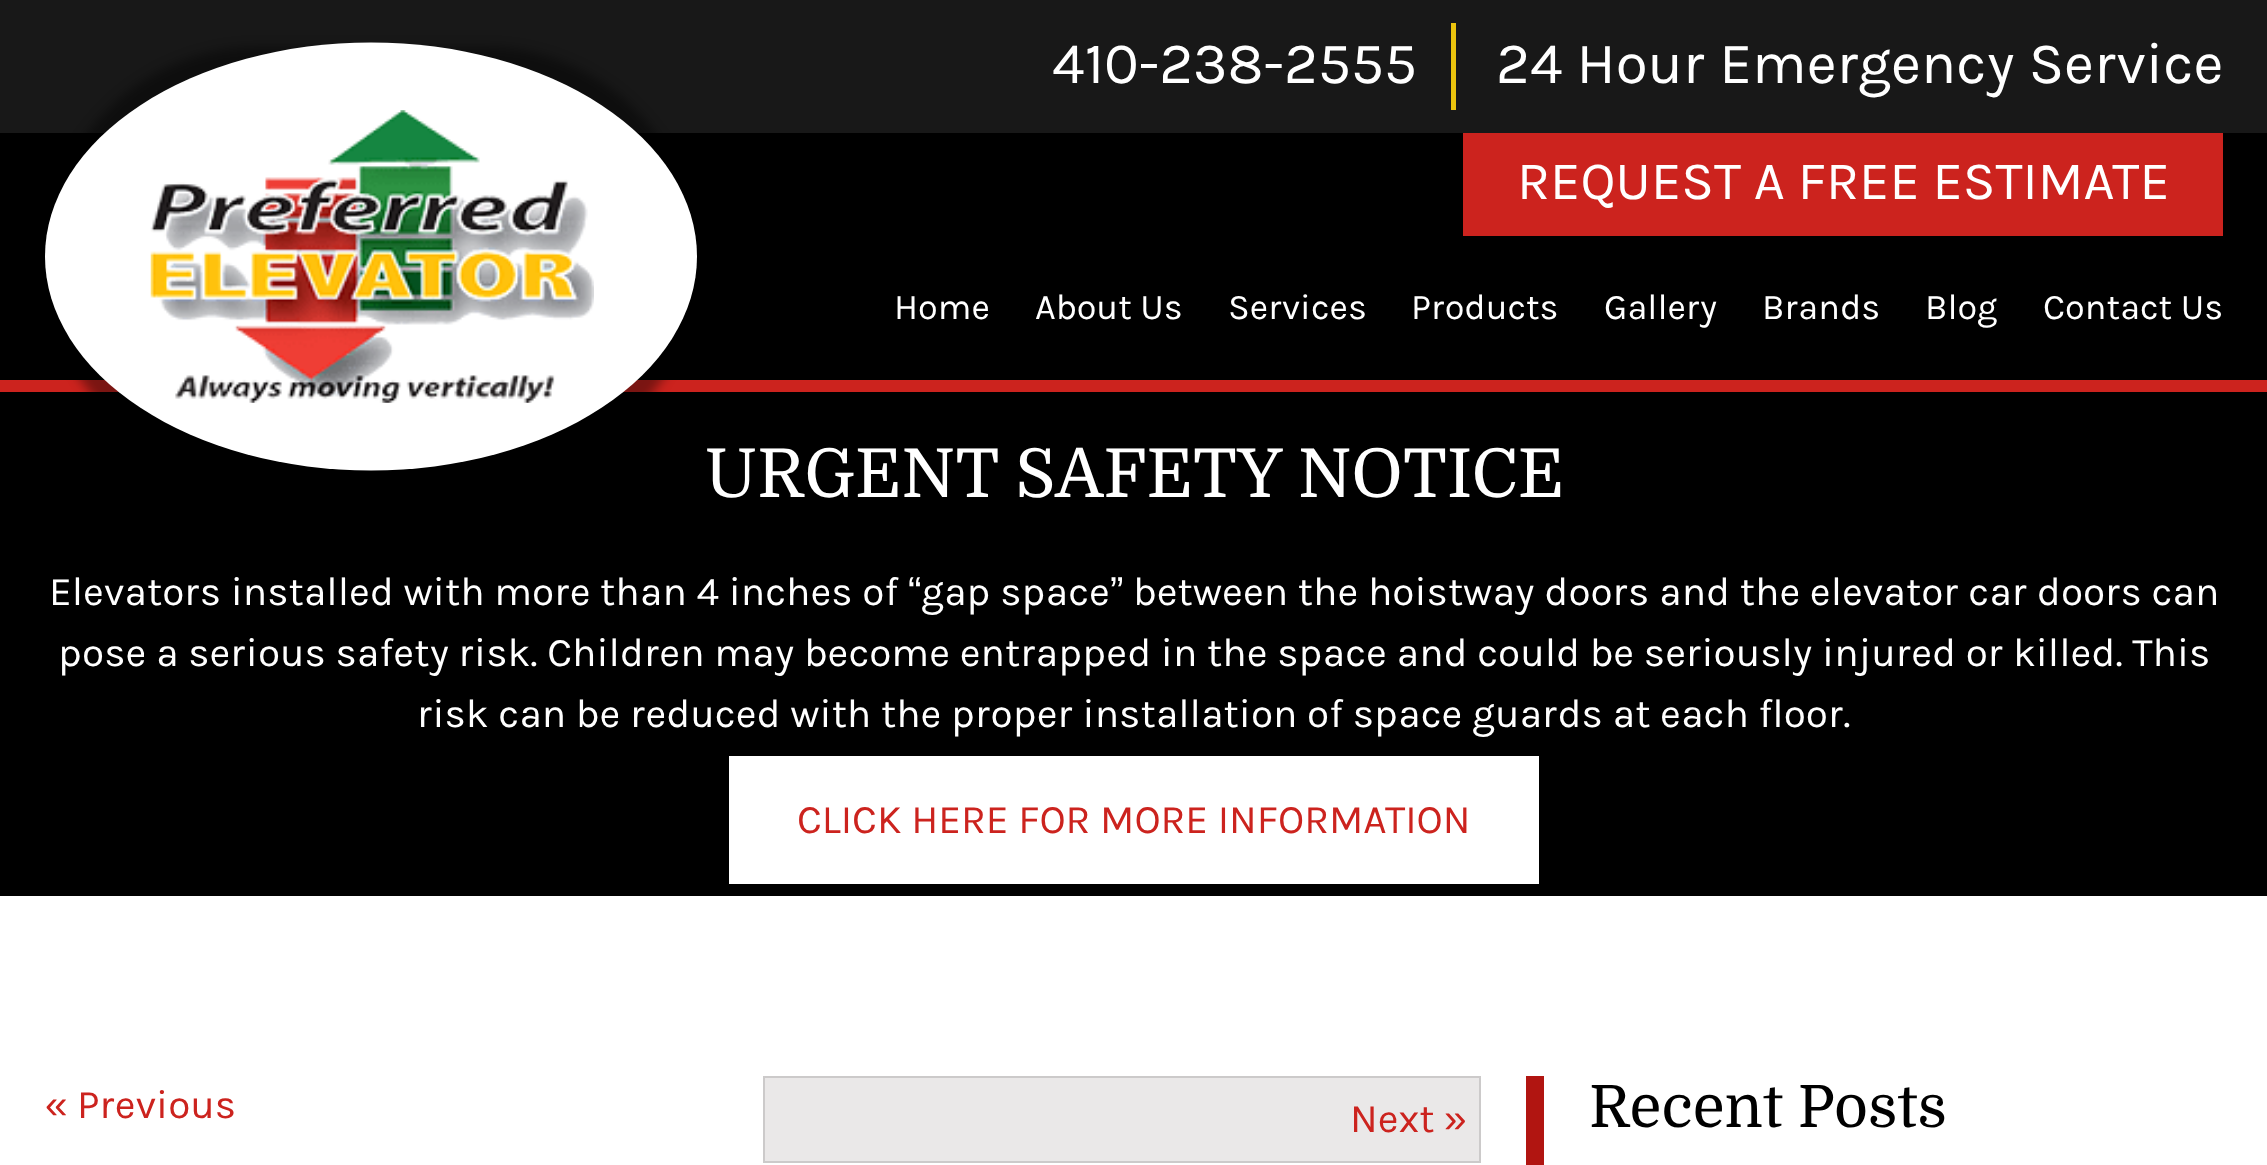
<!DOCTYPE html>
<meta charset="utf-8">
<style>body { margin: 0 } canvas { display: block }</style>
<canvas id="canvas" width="2267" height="1165"></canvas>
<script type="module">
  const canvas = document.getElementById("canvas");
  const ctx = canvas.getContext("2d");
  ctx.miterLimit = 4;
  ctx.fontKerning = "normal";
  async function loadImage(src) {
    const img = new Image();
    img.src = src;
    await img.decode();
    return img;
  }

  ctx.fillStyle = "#ffffff";
  ctx.fillRect(0, 0, 2267, 1165);
  ctx.fillStyle = "#181818";
  ctx.fillRect(0, 0, 2267, 133);
  ctx.fillStyle = "#ecc40d";
  ctx.fillRect(1451, 23, 5, 87);
  ctx.font = "58.5px Karla";
  ctx.fillStyle = "#ffffff";
  ctx.fillText("410-238-2555", 1052, 83);
  ctx.fillText("24 Hour Emergency Service", 1496, 83);
  ctx.fillStyle = "#000000";
  ctx.fillRect(0, 133, 2267, 247);
  ctx.fillStyle = "#cc231e";
  ctx.fillRect(0, 380, 2267, 12);
  ctx.fillStyle = "#000000";
  ctx.fillRect(0, 392, 2267, 504);
  ctx.fillStyle = "rgba(0, 0, 0, 0.4)";
  ctx.filter = "blur(5.5px)";
  ctx.beginPath();
  ctx.roundRect(45, 47, 653, 428, 214);
  ctx.fill();
  ctx.filter = "none";
  ctx.fillStyle = "#ffffff";
  ctx.beginPath();
  ctx.ellipse(371, 256.5, 326, 214, 0, 0, Math.PI * 2);
  ctx.fill();
  ctx.drawImage(await loadImage("img1.png"), 150, 110, 444, 293);
  ctx.fillStyle = "#cc231e";
  ctx.fillRect(1463, 133, 760, 103);
  ctx.font = "54px Karla";
  ctx.fillStyle = "#ffffff";
  ctx.fillText("REQUEST A FREE ESTIMATE", 1517, 199);
  ctx.font = "36px Karla";
  ctx.fillText("Home", 894, 319);
  ctx.fillText("About Us", 1035, 319);
  ctx.fillText("Services", 1228, 319);
  ctx.fillText("Products", 1411, 319);
  ctx.fillText("Gallery", 1604, 319);
  ctx.fillText("Brands", 1762, 319);
  ctx.fillText("Blog", 1925, 319);
  ctx.fillText("Contact Us", 2043, 319);
  ctx.font = "67.5px Domine";
  ctx.fillText("URGENT SAFETY NOTICE", 705, 497);
  ctx.font = "40.5px Karla";
  ctx.fillText("Elevators installed with more than 4 inches of", 49, 605);
  ctx.font = "40.5px Liberation Sans";
  ctx.fillText("“", 908, 605);
  ctx.font = "40.5px Karla";
  ctx.fillText("gap space", 921, 605);
  ctx.font = "40.5px Liberation Sans";
  ctx.fillText("”", 1110, 605);
  ctx.font = "40.5px Karla";
  ctx.fillText("between the hoistway doors and the elevator car doors can", 1133, 605);
  ctx.fillText("pose a serious safety risk. Children may become entrapped in the space and could be seriously injured or killed. This", 58, 666);
  ctx.fillText("risk can be reduced with the proper installation of space guards at each floor.", 417, 727);
  ctx.fillRect(729, 756, 810, 128);
  ctx.fillStyle = "#cc231e";
  ctx.fillText("CLICK HERE FOR MORE INFORMATION", 797, 833);
  ctx.font = "40.5px Liberation Sans";
  ctx.fillText("«", 45, 1118);
  ctx.font = "40.5px Karla";
  ctx.fillText("Previous", 77, 1118);
  ctx.fillStyle = "#eae8e8";
  ctx.beginPath();
  ctx.rect(764, 1077, 716, 85);
  ctx.fill();
  ctx.strokeStyle = "#cccaca";
  ctx.lineWidth = 2;
  ctx.stroke();
  ctx.fillStyle = "#cc231e";
  ctx.fillText("Next", 1350, 1132);
  ctx.font = "40.5px Liberation Sans";
  ctx.fillText("»", 1444, 1132);
  ctx.fillStyle = "#b11511";
  ctx.fillRect(1526, 1076, 18, 89);
  ctx.font = "58.5px Domine";
  ctx.fillStyle = "#000000";
  ctx.fillText("Recent Posts", 1589, 1127);
</script>
